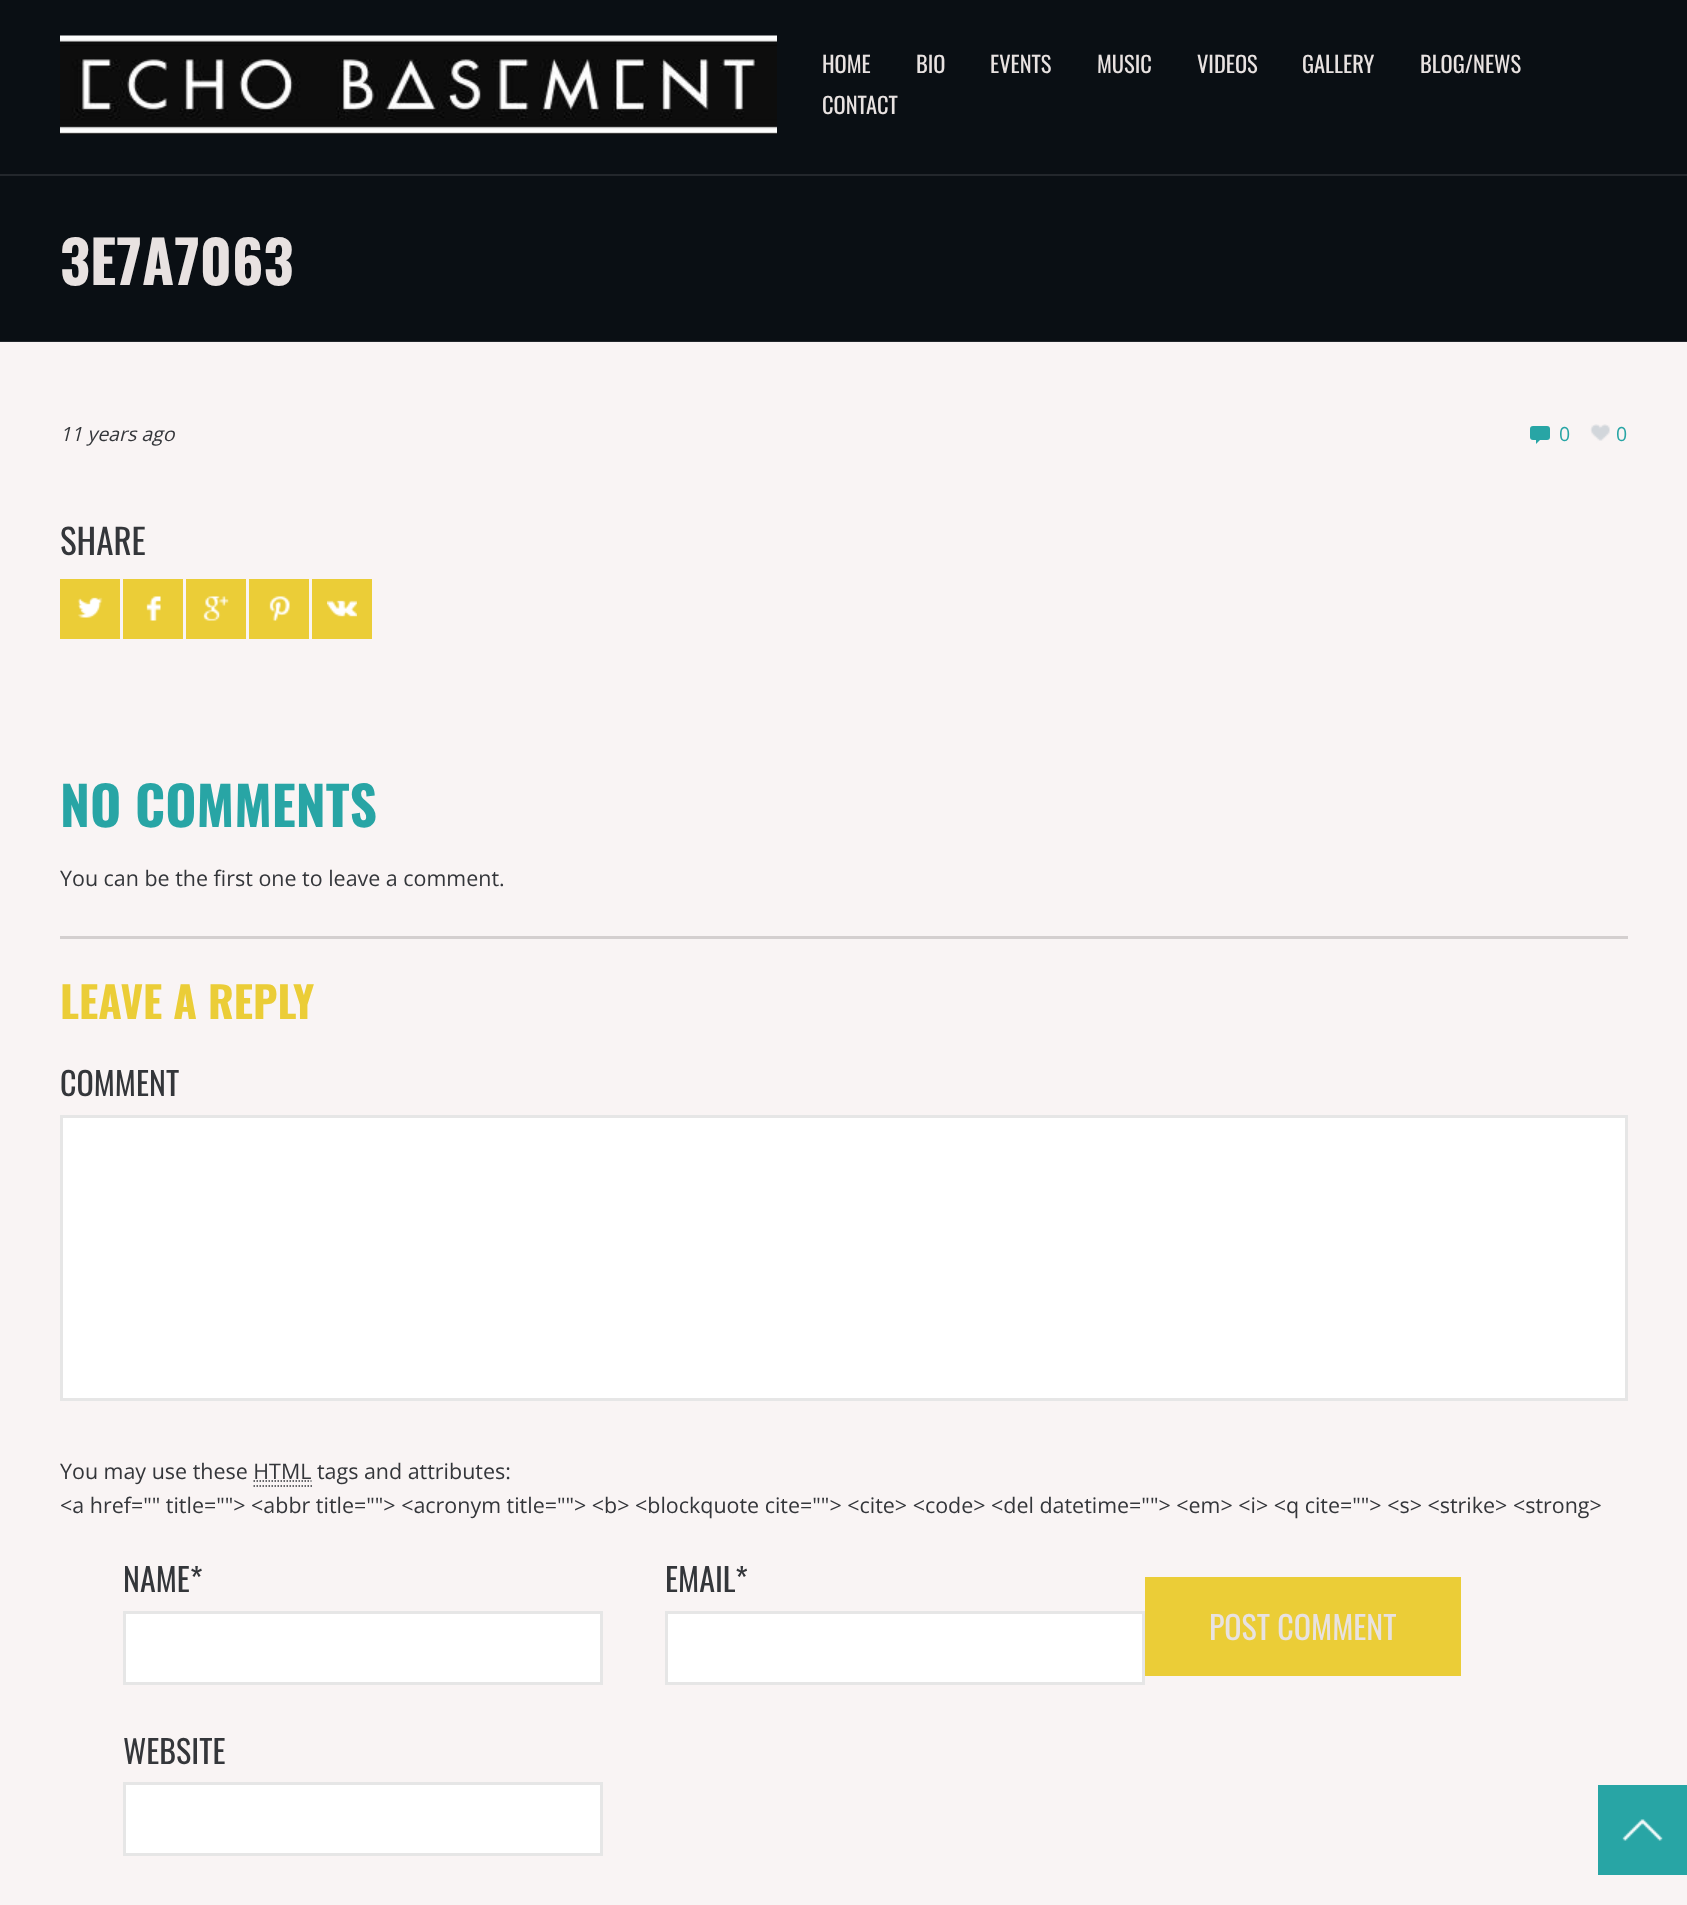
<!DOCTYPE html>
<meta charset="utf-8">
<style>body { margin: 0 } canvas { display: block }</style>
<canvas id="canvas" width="1687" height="1905"></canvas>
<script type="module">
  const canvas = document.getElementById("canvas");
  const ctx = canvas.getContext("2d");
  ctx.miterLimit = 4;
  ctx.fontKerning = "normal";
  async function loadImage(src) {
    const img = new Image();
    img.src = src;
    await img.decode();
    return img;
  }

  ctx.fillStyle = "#0a0f14";
  ctx.fillRect(0, 0, 1687, 1905);
  ctx.fillStyle = "#23272c";
  ctx.fillRect(0, 174, 1687, 2);
  ctx.drawImage(await loadImage("img1.png"), 60, 35, 717, 100);
  ctx.font = "22.5px Oswald";
  ctx.fillStyle = "#e8e2e1";
  ctx.fillText("HOME", 822, 73);
  ctx.fillText("BIO", 916, 73);
  ctx.fillText("EVENTS", 990, 73);
  ctx.fillText("MUSIC", 1097, 73);
  ctx.fillText("VIDEOS", 1197, 73);
  ctx.fillText("GALLERY", 1302, 73);
  ctx.fillText("BLOG/NEWS", 1420, 73);
  ctx.fillText("CONTACT", 822, 114);
  ctx.fillStyle = "#23272c";
  ctx.fillRect(0, 341, 1687, 1);
  ctx.font = "bold 58.5px Oswald";
  ctx.fillStyle = "#e8e2e1";
  ctx.fillText("3E7A7063", 60, 285);
  ctx.fillStyle = "#f9f4f4";
  ctx.fillRect(0, 342, 1687, 1563);
  ctx.font = "italic 19.5px Open Sans";
  ctx.fillStyle = "#34363a";
  ctx.fillText("11 years ago", 60, 441);
  ctx.fillStyle = "#28a5a5";
  ctx.beginPath();
  ctx.roundRect(1530, 426, 20, 14, 3);
  ctx.fill();
  ctx.beginPath();
  ctx.moveTo(1536, 444);
  ctx.lineTo(1536, 439.5);
  ctx.lineTo(1540.5, 439.5);
  ctx.closePath();
  ctx.fill();
  ctx.font = "19.5px Open Sans";
  ctx.fillText("0", 1559, 441);
  ctx.drawImage(await loadImage("img2.png"), 1590, 424, 20, 17);
  ctx.fillText("0", 1616, 441);
  ctx.font = "35px Oswald";
  ctx.fillStyle = "#34363a";
  ctx.fillText("SHARE", 60, 555);
  ctx.fillStyle = "#ebcd37";
  ctx.fillRect(60, 579, 60, 60);
  ctx.drawImage(await loadImage("img3.png"), 77, 597, 26, 21);
  ctx.fillRect(123, 579, 60, 60);
  ctx.drawImage(await loadImage("img4.png"), 146, 596, 15, 25);
  ctx.fillRect(186, 579, 60, 60);
  ctx.drawImage(await loadImage("img5.png"), 203, 596, 26, 25);
  ctx.fillRect(249, 579, 60, 60);
  ctx.drawImage(await loadImage("img6.png"), 269, 596, 21, 25);
  ctx.fillRect(312, 579, 60, 60);
  ctx.drawImage(await loadImage("img7.png"), 327, 600, 30, 17);
  ctx.font = "bold 53.5px Oswald";
  ctx.fillStyle = "#28a5a5";
  ctx.fillText("NO COMMENTS", 60, 827);
  ctx.font = "21.45px Open Sans";
  ctx.fillStyle = "#34363a";
  ctx.fillText("You can be the first one to leave a comment.", 60, 886);
  ctx.fillStyle = "#d4cfcf";
  ctx.fillRect(60, 936, 1568, 3);
  ctx.font = "bold 43px Oswald";
  ctx.fillStyle = "#ebcd37";
  ctx.fillText("LEAVE A REPLY", 60, 1019);
  ctx.font = "32px Oswald";
  ctx.fillStyle = "#34363a";
  ctx.fillText("COMMENT", 60, 1096);
  ctx.fillStyle = "#ffffff";
  ctx.beginPath();
  ctx.rect(61.5, 1116.5, 1565, 283);
  ctx.fill();
  ctx.strokeStyle = "#e6e6e6";
  ctx.lineWidth = 3;
  ctx.stroke();
  ctx.font = "21.45px Open Sans";
  ctx.fillStyle = "#34363a";
  ctx.fillText("You may use these HTML tags and attributes:", 60, 1479);
  ctx.beginPath();
  ctx.moveTo(253.5, 1486);
  ctx.lineTo(312, 1486);
  ctx.moveTo(253.5, 1481);
  ctx.lineTo(311.5, 1481);
  ctx.strokeStyle = "#34363a";
  ctx.lineWidth = 1.5;
  ctx.setLineDash([1.5, 1.5]);
  ctx.stroke();
  ctx.fillText("<a href=\"\" title=\"\"> <abbr title=\"\"> <acronym title=\"\"> <b> <blockquote cite=\"\"> <cite> <code> <del datetime=\"\"> <em> <i> <q cite=\"\"> <s> <strike> <strong>", 60, 1513);
  ctx.font = "32px Oswald";
  ctx.fillText("NAME*", 123, 1592);
  ctx.fillStyle = "#ffffff";
  ctx.beginPath();
  ctx.rect(124.5, 1612.5, 477, 71);
  ctx.fill();
  ctx.strokeStyle = "#e6e6e6";
  ctx.lineWidth = 3;
  ctx.setLineDash([]);
  ctx.stroke();
  ctx.fillStyle = "#34363a";
  ctx.fillText("EMAIL", 665, 1592);
  ctx.fillText("*", 735, 1592);
  ctx.fillStyle = "#ffffff";
  ctx.beginPath();
  ctx.rect(666.5, 1612.5, 477, 71);
  ctx.fill();
  ctx.stroke();
  ctx.fillStyle = "#ebcd37";
  ctx.fillRect(1145, 1577, 316, 99);
  ctx.fillStyle = "#e8e2e1";
  ctx.fillText("POST COMMENT", 1209, 1640);
  ctx.fillStyle = "#34363a";
  ctx.fillText("WEBSITE", 123, 1764);
  ctx.fillStyle = "#ffffff";
  ctx.beginPath();
  ctx.rect(124.5, 1783.5, 477, 71);
  ctx.fill();
  ctx.stroke();
  ctx.fillStyle = "#28a5a5";
  ctx.fillRect(1598, 1785, 89, 90);
  ctx.drawImage(await loadImage("img8.png"), 1622, 1819, 41, 22);
</script>
